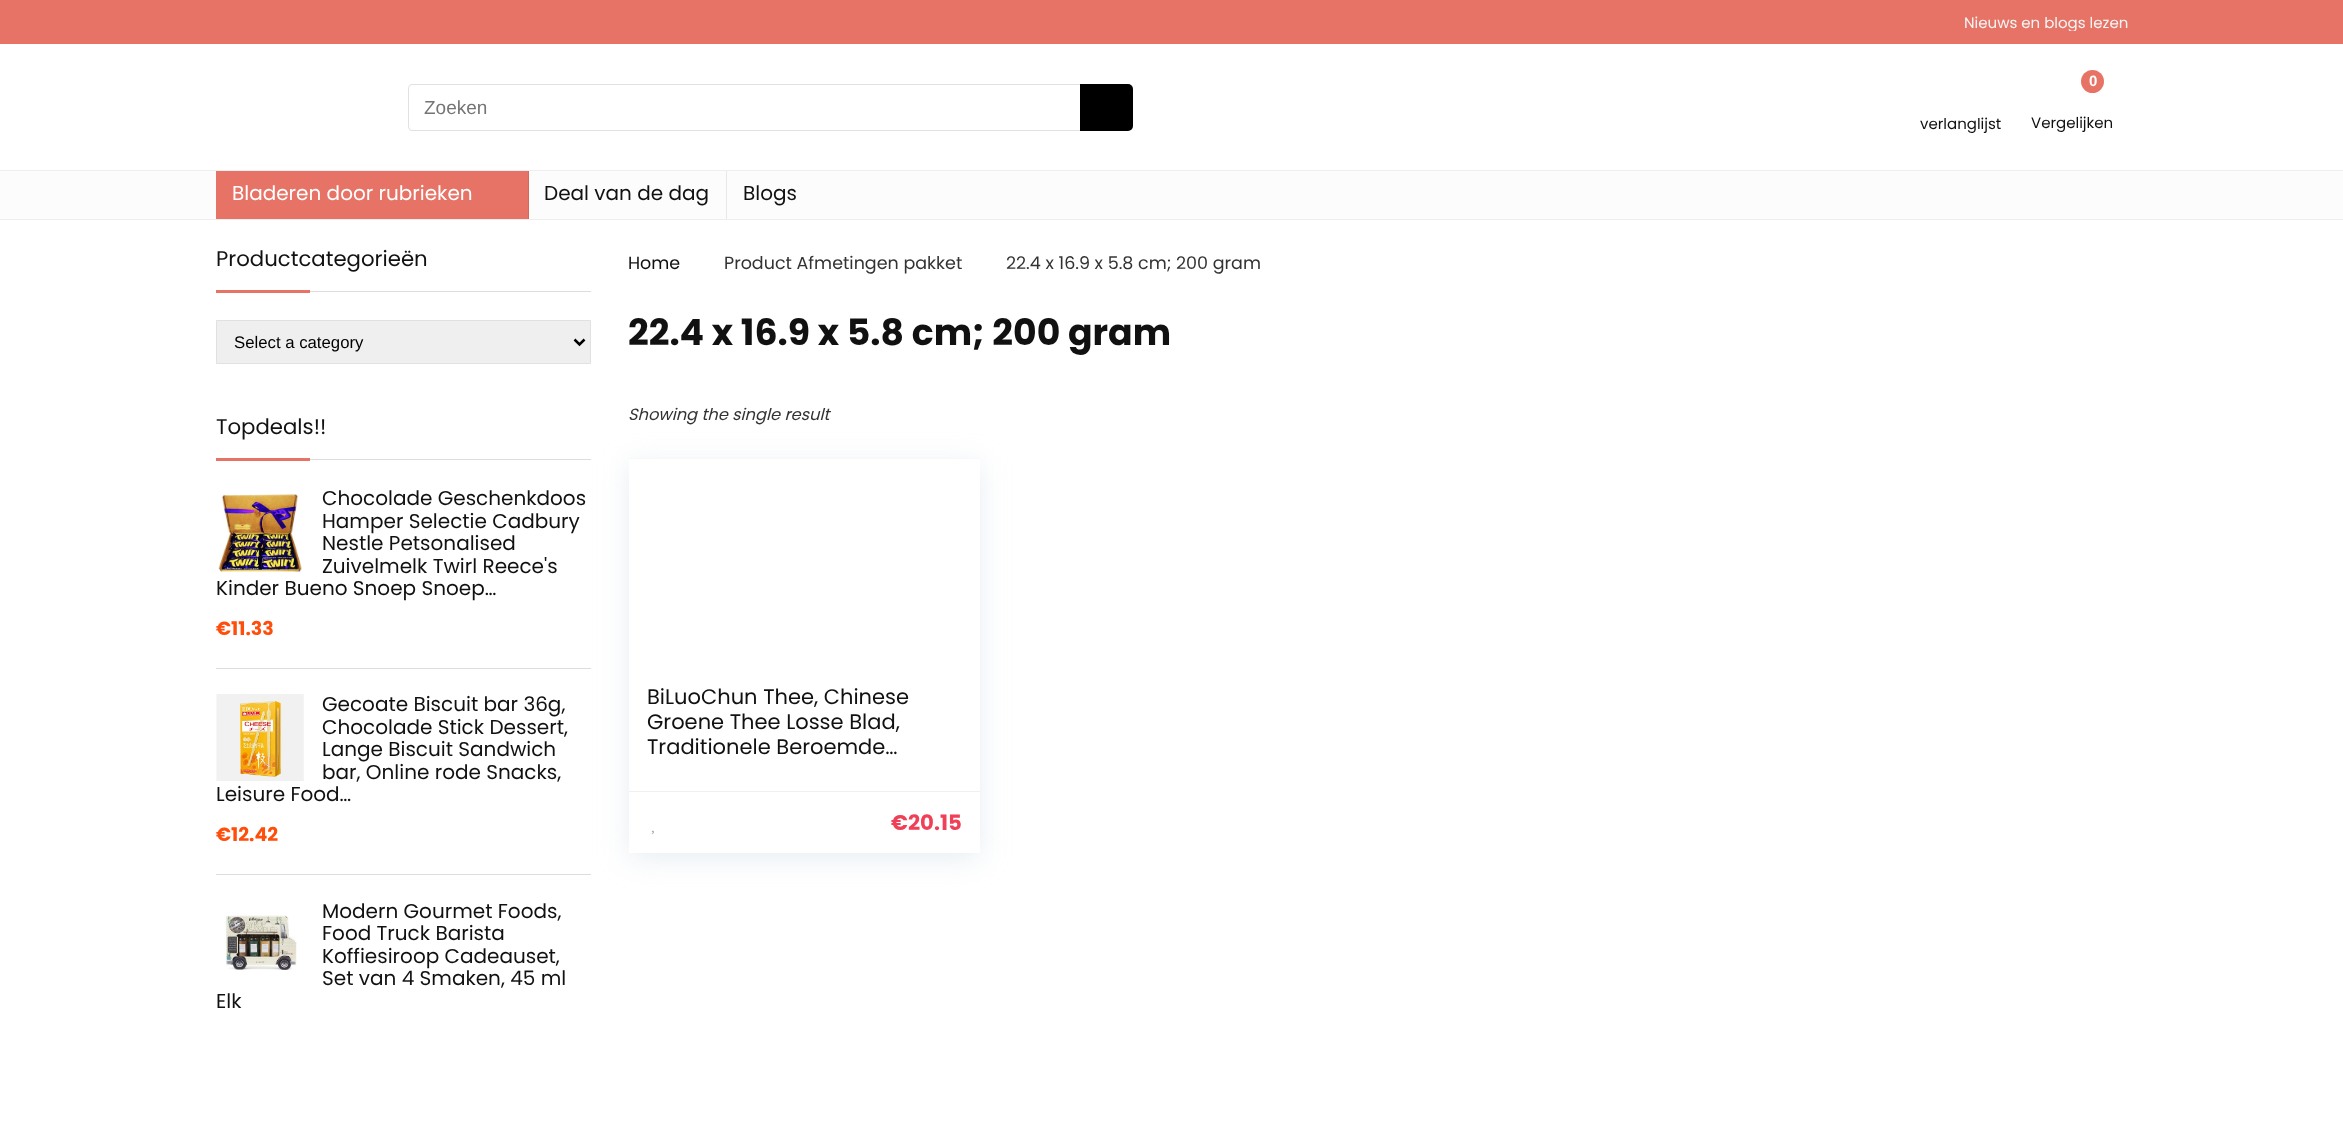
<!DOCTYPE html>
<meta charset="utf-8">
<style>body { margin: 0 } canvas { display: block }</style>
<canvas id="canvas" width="2343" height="1122"></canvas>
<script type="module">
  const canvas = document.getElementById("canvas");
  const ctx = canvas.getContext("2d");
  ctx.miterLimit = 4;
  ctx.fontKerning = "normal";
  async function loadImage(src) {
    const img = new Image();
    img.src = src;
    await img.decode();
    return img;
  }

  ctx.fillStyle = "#ffffff";
  ctx.fillRect(0, 0, 2343, 1122);
  ctx.fillStyle = "#e67365";
  ctx.fillRect(0, 0, 2343, 44);
  ctx.save();
  ctx.beginPath();
  ctx.rect(1964, 13, 165, 18);
  ctx.clip();
  ctx.font = "15px Poppins";
  ctx.fillStyle = "#f4f4f4";
  ctx.fillText("Nieuws en blogs lezen", 1964, 28);
  ctx.restore();
  ctx.fillStyle = "#e1e1e1";
  ctx.beginPath();
  ctx.moveTo(412, 84);
  ctx.lineTo(1080, 84);
  ctx.lineTo(1080, 131);
  ctx.lineTo(412, 131);
  ctx.bezierCurveTo(410, 131, 408, 129, 408, 126);
  ctx.lineTo(408, 89);
  ctx.bezierCurveTo(408, 86, 410, 84, 412, 84);
  ctx.closePath();
  ctx.moveTo(412, 85);
  ctx.lineTo(1080, 85);
  ctx.lineTo(1080, 130);
  ctx.lineTo(412, 130);
  ctx.bezierCurveTo(410, 130, 409, 128, 409, 126);
  ctx.lineTo(409, 89);
  ctx.bezierCurveTo(409, 87, 410, 85, 412, 85);
  ctx.closePath();
  ctx.fill("evenodd");
  ctx.font = "19px Liberation Sans";
  ctx.fillStyle = "#757575";
  ctx.fillText("Zoeken", 424, 114);
  ctx.fillStyle = "#000000";
  ctx.beginPath();
  ctx.roundRect(1080, 84, 53, 47, [0, 5, 5, 0]);
  ctx.fill();
  ctx.font = "15px Poppins";
  ctx.fillStyle = "#111111";
  ctx.fillText("verlanglijst", 1920, 129);
  ctx.fillStyle = "#e67365";
  ctx.beginPath();
  ctx.arc(2092.5, 81.5, 11.5, 0, Math.PI * 2);
  ctx.fill();
  ctx.font = "bold 15px Liberation Sans";
  ctx.fillStyle = "#ffffff";
  ctx.fillText("0", 2089, 86);
  ctx.font = "15px Poppins";
  ctx.fillStyle = "#111111";
  ctx.fillText("Vergelijken", 2031, 128);
  ctx.fillStyle = "#fcfcfc";
  ctx.fillRect(0, 171, 2343, 48);
  ctx.fillStyle = "#eeeeee";
  ctx.fillRect(0, 170, 2343, 1);
  ctx.fillRect(0, 219, 2343, 1);
  ctx.fillStyle = "#e67365";
  ctx.fillRect(216, 171, 312, 48);
  ctx.fillStyle = "#d46a5d";
  ctx.fillRect(528, 171, 1, 48);
  ctx.font = "20px Poppins";
  ctx.fillStyle = "#ffffff";
  ctx.fillText("Bladeren door rubrieken", 232, 200);
  ctx.fillStyle = "#e8e8e8";
  ctx.fillRect(726, 171, 1, 48);
  ctx.fillStyle = "#111111";
  ctx.fillText("Deal van de dag", 544, 200);
  ctx.fillText("Blogs", 743, 200);
  ctx.fillStyle = "#dddddd";
  ctx.fillRect(310, 291, 281, 1);
  ctx.font = "21.25px Poppins";
  ctx.fillStyle = "#111111";
  ctx.fillText("Productcategorieën", 216, 266);
  ctx.fillStyle = "#e67365";
  ctx.fillRect(216, 290, 94, 3);
  ctx.fillStyle = "#efefef";
  ctx.beginPath();
  ctx.rect(216.5, 320.5, 374, 43);
  ctx.fill();
  ctx.strokeStyle = "#e1e1e1";
  ctx.stroke();
  ctx.beginPath();
  ctx.moveTo(574.5, 339.5);
  ctx.lineTo(579.5, 344.5);
  ctx.lineTo(584.5, 339.5);
  ctx.strokeStyle = "#000000";
  ctx.lineWidth = 2.5;
  ctx.stroke();
  ctx.font = "16.75px Liberation Sans";
  ctx.fillStyle = "#000000";
  ctx.fillText("Select a category", 234, 348);
  ctx.fillStyle = "#dddddd";
  ctx.fillRect(310, 459, 281, 1);
  ctx.font = "21.25px Poppins";
  ctx.fillStyle = "#111111";
  ctx.fillText("Topdeals!!", 216, 434);
  ctx.fillStyle = "#e67365";
  ctx.fillRect(216, 458, 94, 3);
  ctx.fillStyle = "#dddddd";
  ctx.fillRect(216, 668, 375, 1);
  ctx.drawImage(await loadImage("img1.png"), 218, 494, 84, 78);
  ctx.font = "20px Poppins";
  ctx.fillStyle = "#111111";
  ctx.fillText("Chocolade Geschenkdoos", 322, 505);
  ctx.fillText("Hamper Selectie Cadbury", 322, 528);
  ctx.fillText("Nestle Petsonalised", 322, 550);
  ctx.fillText("Zuivelmelk Twirl Reece's", 322, 573);
  ctx.fillText("Kinder Bueno Snoep Snoep…", 216, 595);
  ctx.font = "bold 19px Poppins";
  ctx.fillStyle = "#ff4e0c";
  ctx.fillText("€11.33", 216, 635);
  ctx.fillStyle = "#dddddd";
  ctx.fillRect(216, 874, 375, 1);
  ctx.drawImage(await loadImage("img2.png"), 216, 694, 88, 87);
  ctx.font = "20px Poppins";
  ctx.fillStyle = "#111111";
  ctx.fillText("Gecoate Biscuit bar 36g,", 322, 711);
  ctx.fillText("Chocolade Stick Dessert,", 322, 734);
  ctx.fillText("Lange Biscuit Sandwich", 322, 756);
  ctx.fillText("bar, Online rode Snacks,", 322, 779);
  ctx.fillText("Leisure Food…", 216, 801);
  ctx.font = "bold 19px Poppins";
  ctx.fillStyle = "#ff4e0c";
  ctx.fillText("€12.42", 216, 841);
  ctx.font = "20px Poppins";
  ctx.fillStyle = "#111111";
  ctx.fillText("Modern Gourmet Foods,", 322, 918);
  ctx.drawImage(await loadImage("img3.png"), 225, 915, 72, 55);
  ctx.fillText("Food Truck Barista", 322, 940);
  ctx.fillText("Koffiesiroop Cadeauset,", 322, 963);
  ctx.fillText("Set van 4 Smaken, 45 ml", 322, 985);
  ctx.fillText("Elk", 216, 1008);
  ctx.font = "17.5px Poppins";
  ctx.fillText("Home", 628, 269);
  ctx.fillStyle = "#333333";
  ctx.fillText("Product Afmetingen pakket", 724, 269);
  ctx.fillText("22.4 x 16.9 x 5.8 cm; 200 gram", 1006, 269);
  ctx.font = "bold 36.25px Poppins";
  ctx.fillStyle = "#111111";
  ctx.fillText("22.4 x 16.9 x 5.8 cm; 200 gram", 628, 345);
  ctx.font = "italic 16.25px Poppins";
  ctx.fillStyle = "#333333";
  ctx.fillText("Showing the single result", 628, 420);
  ctx.fillStyle = "rgba(188, 207, 219, 0.35)";
  ctx.filter = "blur(14.5px)";
  ctx.beginPath();
  ctx.rect(629, 464, 351, 395);
  ctx.fill();
  ctx.filter = "none";
  ctx.fillStyle = "#ffffff";
  ctx.fillRect(629, 459, 351, 394);
  ctx.fillStyle = "#f8f8f8";
  ctx.fillRect(629, 458, 351, 1);
  ctx.font = "21px Poppins";
  ctx.fillStyle = "#111111";
  ctx.fillText("BiLuoChun Thee, Chinese", 647, 704);
  ctx.fillText("Groene Thee Losse Blad,", 647, 729);
  ctx.fillText("Traditionele Beroemde…", 647, 754);
  ctx.fillStyle = "#f0f0f0";
  ctx.fillRect(629, 791, 351, 1);
  ctx.font = "bold 21.25px Poppins";
  ctx.fillStyle = "#f04057";
  ctx.fillText("€20.15", 891, 830);
  ctx.drawImage(await loadImage("img4.png"), 651, 830, 3, 5);
</script>
